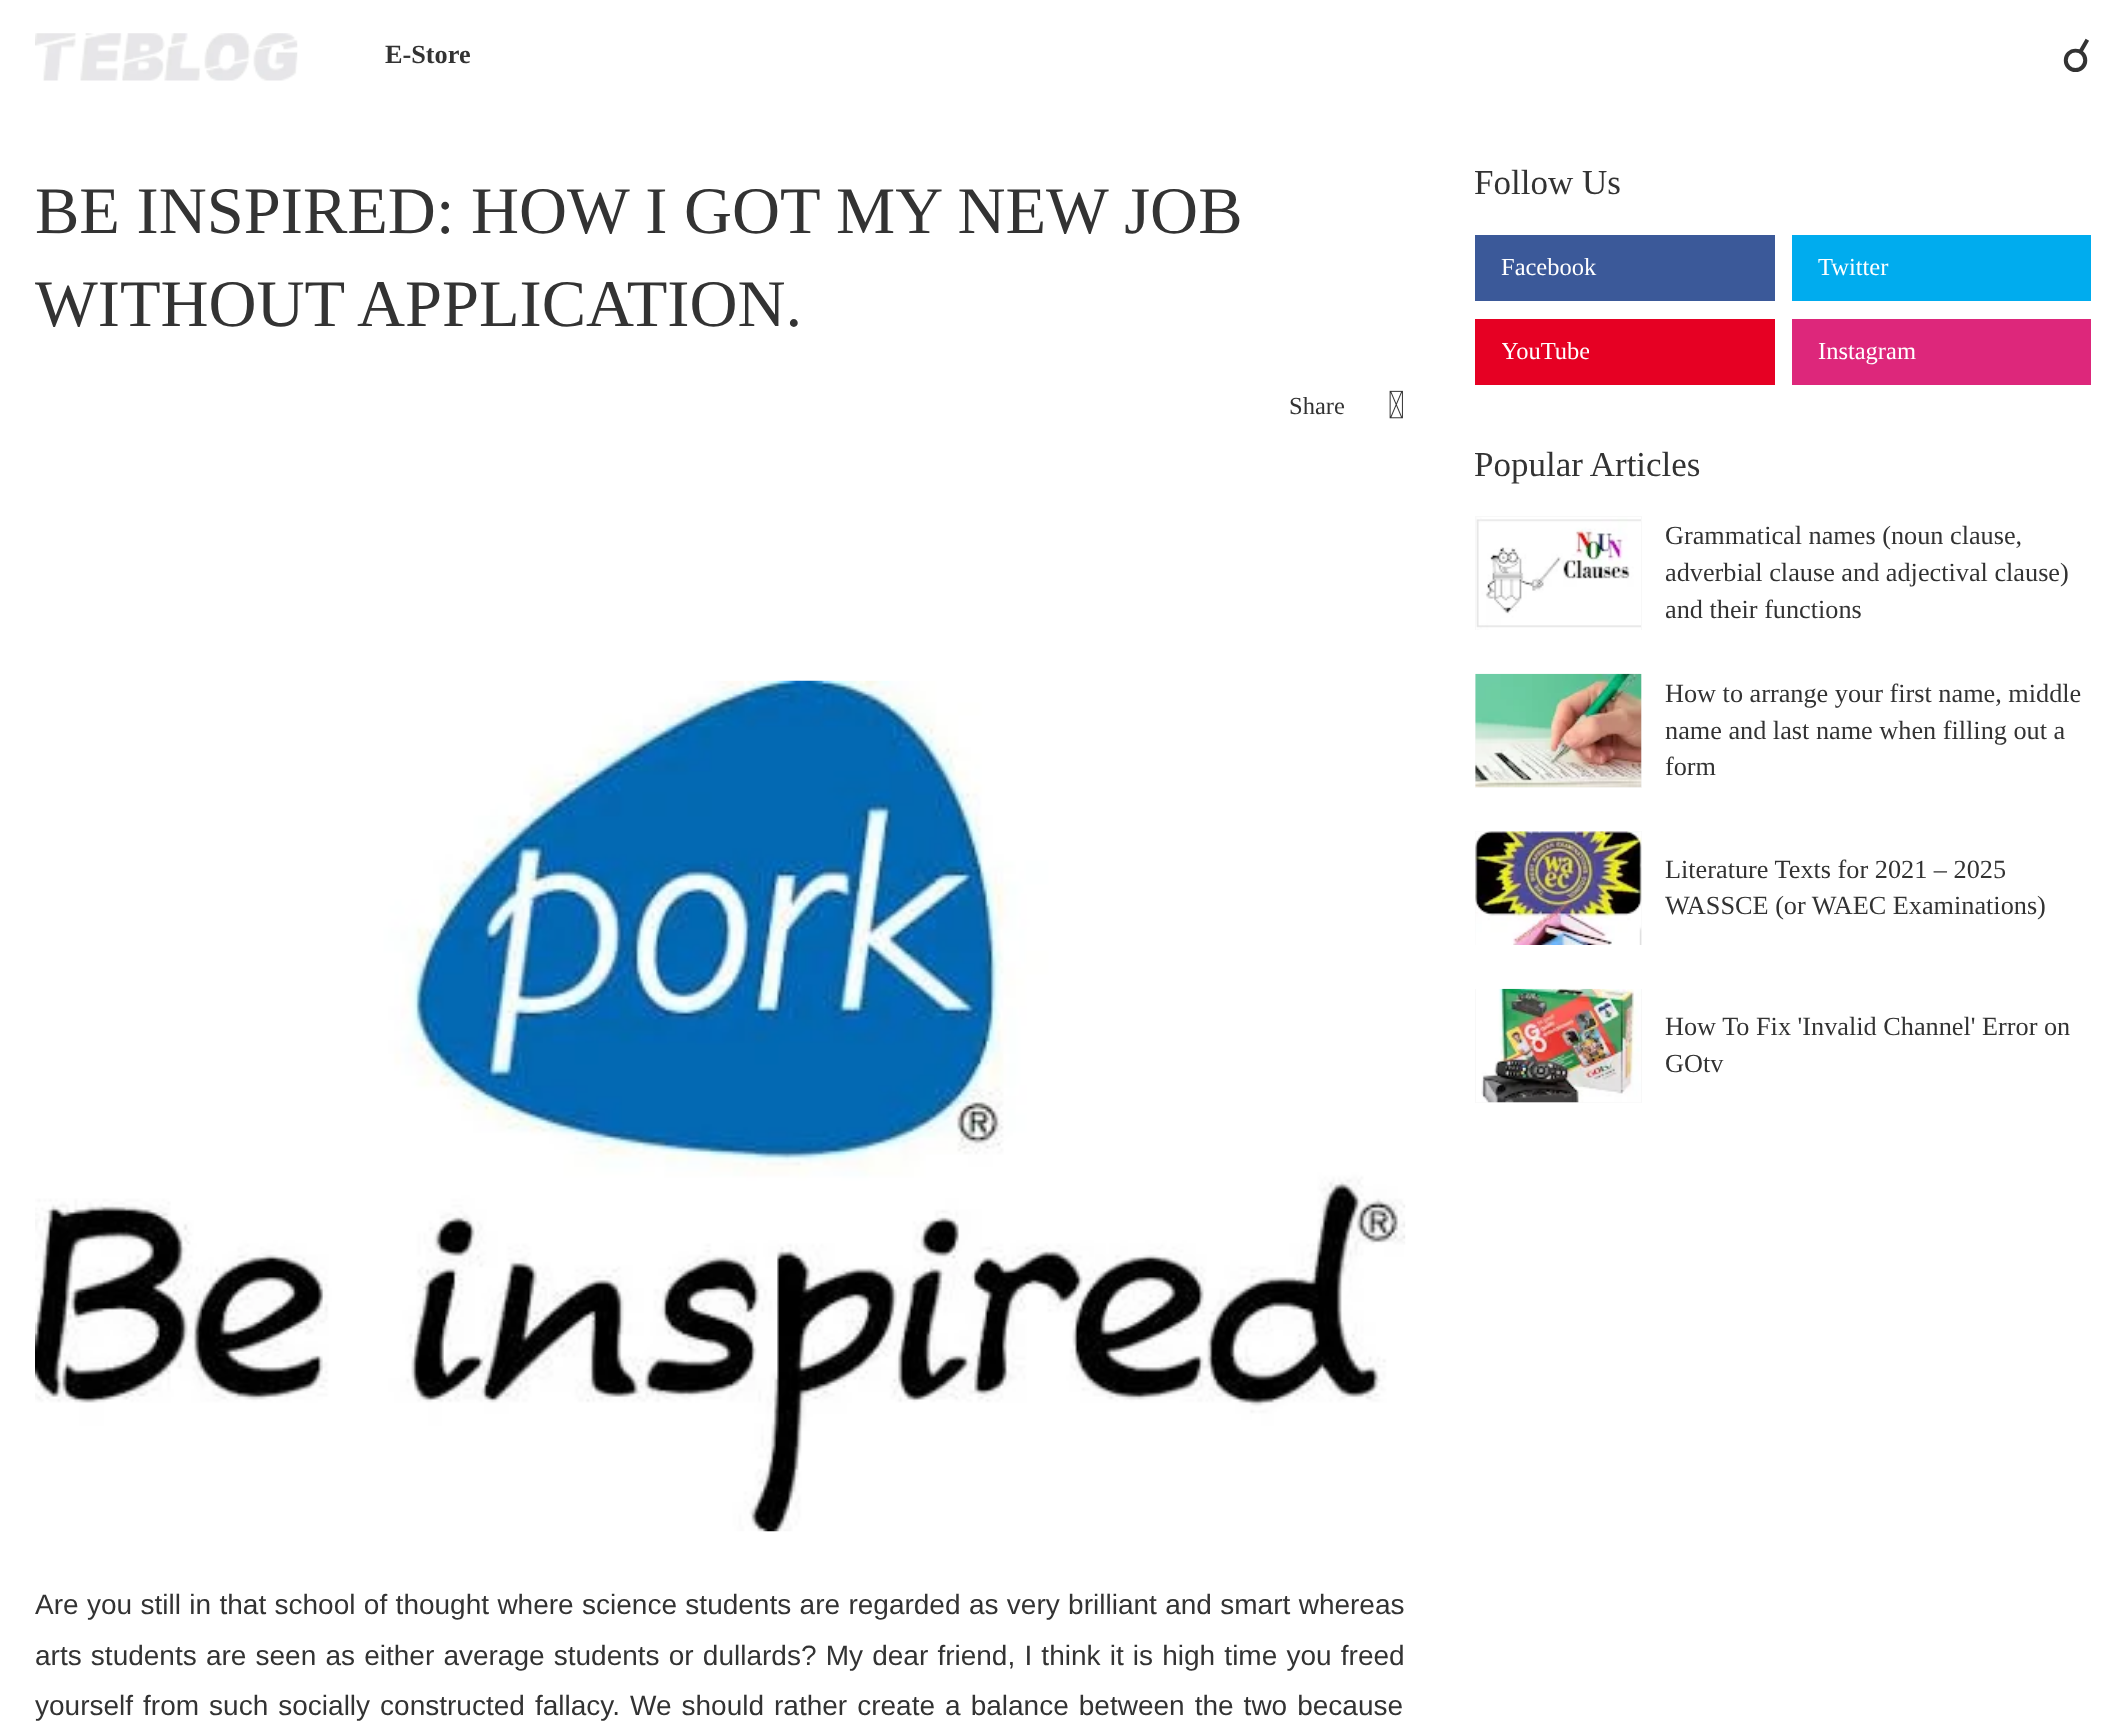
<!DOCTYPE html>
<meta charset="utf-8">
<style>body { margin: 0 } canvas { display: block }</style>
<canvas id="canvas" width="2125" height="1721"></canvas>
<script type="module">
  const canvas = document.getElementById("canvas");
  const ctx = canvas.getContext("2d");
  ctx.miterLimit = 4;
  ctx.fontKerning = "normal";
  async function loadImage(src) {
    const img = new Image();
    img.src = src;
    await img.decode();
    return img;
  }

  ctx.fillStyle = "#ffffff";
  ctx.fillRect(0, 0, 2125, 1721);
  ctx.drawImage(await loadImage("img1.png"), 35, 33, 263, 48);
  ctx.font = "bold 26.25px Liberation Serif";
  ctx.fillStyle = "#333333";
  ctx.fillText("E-Store", 385, 63);
  ctx.font = "46px DejaVu Sans";
  ctx.fillText("☌", 2061, 72);
  ctx.font = "66.5px Liberation Serif";
  ctx.fillText("BE INSPIRED: HOW I GOT MY NEW JOB", 35, 233);
  ctx.fillText("WITHOUT APPLICATION.", 35, 326);
  ctx.font = "24.5px Liberation Serif";
  ctx.fillText("Share", 1289, 414);
  ctx.drawImage(await loadImage("img2.png"), 1389, 390, 14, 29);
  ctx.drawImage(await loadImage("img3.png"), 35, 680, 1371, 852);
  ctx.wordSpacing = "0.6px";
  ctx.font = "28px Liberation Sans";
  ctx.fillText("Are you still in that school of thought where science students are regarded as very brilliant and smart whereas", 35, 1614);
  ctx.wordSpacing = "1.4px";
  ctx.fillText("arts students are seen as either average students or dullards? My dear friend, I think it is high time you freed", 35, 1665);
  ctx.wordSpacing = "2.25px";
  ctx.fillText("yourself from such socially constructed fallacy. We should rather create a balance between the two because", 35, 1715);
  ctx.wordSpacing = "0px";
  ctx.font = "35px Liberation Serif";
  ctx.fillText("Follow Us", 1474, 194);
  ctx.fillStyle = "#3b5999";
  ctx.fillRect(1475, 235, 300, 66);
  ctx.font = "24.5px Liberation Serif";
  ctx.fillStyle = "#ffffff";
  ctx.fillText("Facebook", 1501, 275);
  ctx.fillStyle = "#00acee";
  ctx.fillRect(1792, 235, 299, 66);
  ctx.fillStyle = "#ffffff";
  ctx.fillText("Twitter", 1818, 275);
  ctx.fillStyle = "#e60023";
  ctx.fillRect(1475, 319, 300, 66);
  ctx.save();
  ctx.beginPath();
  ctx.rect(1502, 331, 87, 42);
  ctx.clip();
  ctx.fillStyle = "#ffffff";
  ctx.fillText("YouTube", 1501, 359);
  ctx.restore();
  ctx.fillStyle = "#dd277b";
  ctx.fillRect(1792, 319, 299, 66);
  ctx.fillStyle = "#ffffff";
  ctx.fillText("Instagram", 1818, 359);
  ctx.font = "35px Liberation Serif";
  ctx.fillStyle = "#333333";
  ctx.fillText("Popular Articles", 1474, 476);
  ctx.fillStyle = "#f8f8f8";
  ctx.fillRect(1475, 516, 167, 114);
  ctx.drawImage(await loadImage("img4.png"), 1476, 517, 165, 113);
  ctx.font = "26.25px Liberation Serif";
  ctx.fillStyle = "#333333";
  ctx.fillText("Grammatical names (noun clause,", 1665, 544);
  ctx.fillText("adverbial clause and adjectival clause)", 1665, 581);
  ctx.fillText("and their functions", 1665, 618);
  ctx.fillStyle = "#f8f8f8";
  ctx.fillRect(1475, 674, 167, 114);
  ctx.drawImage(await loadImage("img5.png"), 1475, 673, 167, 115);
  ctx.fillStyle = "#333333";
  ctx.fillText("How to arrange your first name, middle", 1665, 702);
  ctx.fillText("name and last name when filling out a", 1665, 739);
  ctx.fillText("form", 1665, 775);
  ctx.fillStyle = "#f8f8f8";
  ctx.fillRect(1475, 831, 167, 114);
  ctx.drawImage(await loadImage("img6.png"), 1475, 831, 167, 114);
  ctx.fillStyle = "#333333";
  ctx.fillText("Literature Texts for 2021 – 2025", 1665, 878);
  ctx.fillText("WASSCE (or WAEC Examinations)", 1665, 914);
  ctx.fillStyle = "#f8f8f8";
  ctx.fillRect(1475, 989, 167, 114);
  ctx.drawImage(await loadImage("img7.png"), 1476, 988, 165, 115);
  ctx.fillStyle = "#333333";
  ctx.fillText("How To Fix 'Invalid Channel' Error on", 1665, 1035);
  ctx.fillText("GOtv", 1665, 1072);
</script>
